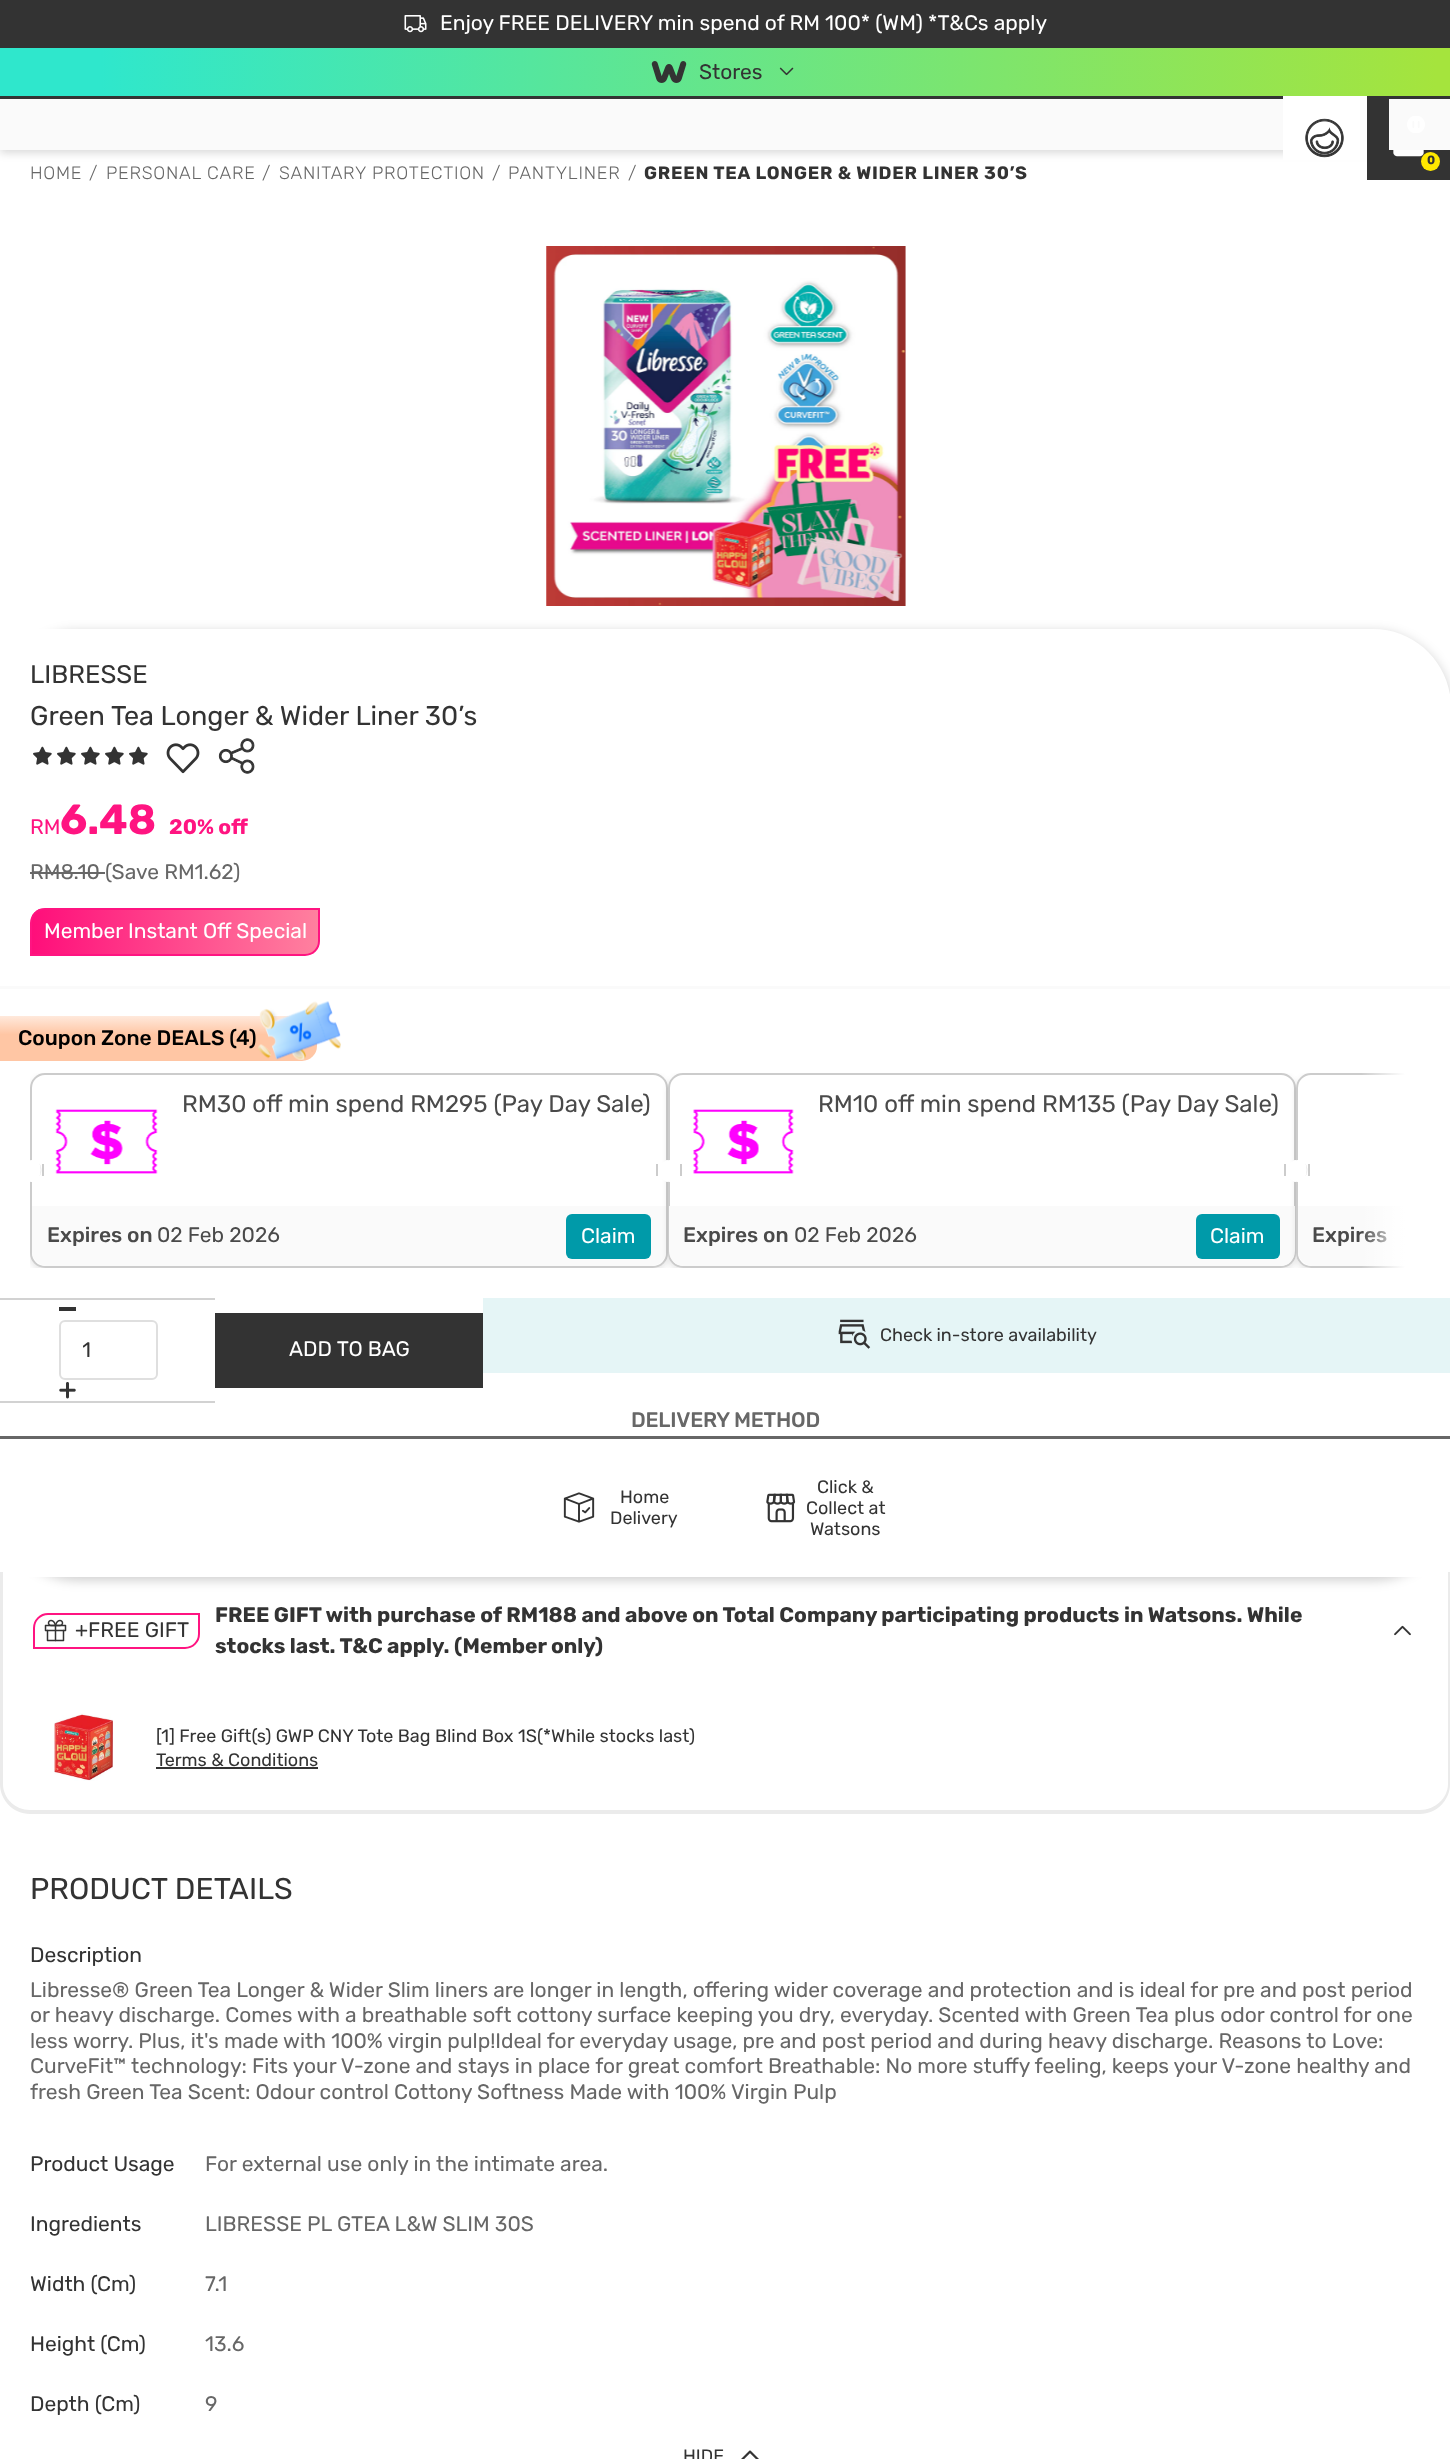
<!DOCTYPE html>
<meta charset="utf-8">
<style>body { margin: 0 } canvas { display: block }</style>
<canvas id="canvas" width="1450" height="2459"></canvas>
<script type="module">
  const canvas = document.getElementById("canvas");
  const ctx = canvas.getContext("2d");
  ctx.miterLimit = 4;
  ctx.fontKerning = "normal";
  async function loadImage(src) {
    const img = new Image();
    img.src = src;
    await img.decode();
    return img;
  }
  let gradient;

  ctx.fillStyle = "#ffffff";
  ctx.fillRect(0, 0, 1450, 2459);
  ctx.fillStyle = "rgba(0, 0, 0, 0.15)";
  ctx.filter = "blur(4.5px)";
  ctx.beginPath();
  ctx.rect(0, 3, 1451, 150);
  ctx.fill();
  ctx.filter = "none";
  ctx.fillStyle = "#333333";
  ctx.fillRect(0, 96, 1283, 3);
  ctx.fillRect(0, 0, 1450, 48);
  ctx.drawImage(await loadImage("img1.png"), 404, 15, 23, 18);
  ctx.font = "21px Rubik";
  ctx.fillStyle = "#ffffff";
  ctx.fillText("Enjoy FREE DELIVERY min spend of RM 100* (WM) *T&Cs apply", 440, 30);
  gradient = ctx.createLinearGradient(0, 47, 1450, 97);
  gradient.addColorStop(0.07, "#2fe7cc");
  gradient.addColorStop(0.99, "#a5e43d");
  ctx.fillStyle = gradient;
  ctx.fillRect(0, 48, 1450, 48);
  ctx.drawImage(await loadImage("img2.png"), 651, 61, 36, 22);
  ctx.fillStyle = "#333333";
  ctx.fillText("Stores", 699, 79);
  ctx.drawImage(await loadImage("img3.png"), 779, 67, 15, 9);
  ctx.fillStyle = "#ffffff";
  ctx.fillRect(1283, 96, 84, 64);
  ctx.drawImage(await loadImage("img4.png"), 1305, 118, 39, 40);
  ctx.fillStyle = "#333333";
  ctx.fillRect(1367, 96, 83, 84);
  ctx.drawImage(await loadImage("img5.png"), 1393, 150, 31, 7);
  ctx.fillStyle = "#ffe900";
  ctx.beginPath();
  ctx.arc(1430.5, 161.5, 9.5, 0, Math.PI * 2);
  ctx.fill();
  ctx.font = "bold 12px Rubik";
  ctx.fillStyle = "#333333";
  ctx.fillText("0", 1427, 164);
  ctx.fillStyle = "#fafafa";
  ctx.fillRect(0, 99, 1283, 51);
  ctx.fillRect(1389, 99, 61, 51);
  ctx.drawImage(await loadImage("img6.png"), 1407, 116, 18, 17);
  ctx.letterSpacing = "0.75px";
  ctx.font = "300 18px Rubik";
  ctx.fillStyle = "#676767";
  ctx.fillText("HOME", 30, 179);
  ctx.fillText("/", 89, 179);
  ctx.fillText("PERSONAL CARE", 106, 179);
  ctx.fillText("/", 262, 179);
  ctx.fillText("SANITARY PROTECTION", 279, 179);
  ctx.fillText("/", 492, 179);
  ctx.fillText("PANTYLINER", 508, 179);
  ctx.fillText("/", 628, 179);
  ctx.font = "bold 18px Rubik";
  ctx.fillStyle = "#333333";
  ctx.fillText("GREEN TEA LONGER & WIDER LINER 30’S", 644, 179);
  ctx.drawImage(await loadImage("img7.png"), 546, 246, 360, 360);
  ctx.fillStyle = "rgba(255, 255, 255, 0.25)";
  ctx.fillRect(905, 246, 1, 360);
  ctx.save();
  ctx.beginPath();
  ctx.moveTo(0, 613);
  ctx.lineTo(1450, 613);
  ctx.lineTo(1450, 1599);
  ctx.lineTo(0, 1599);
  ctx.closePath();
  ctx.moveTo(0, 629);
  ctx.lineTo(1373, 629);
  ctx.bezierCurveTo(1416, 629, 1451, 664, 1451, 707);
  ctx.lineTo(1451, 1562);
  ctx.bezierCurveTo(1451, 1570.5, 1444.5, 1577, 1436, 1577);
  ctx.lineTo(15, 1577);
  ctx.bezierCurveTo(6.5, 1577, 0, 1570.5, 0, 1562);
  ctx.closePath();
  ctx.clip("evenodd");
  ctx.fillStyle = "rgba(0, 0, 0, 0.2)";
  ctx.filter = "blur(6px)";
  ctx.beginPath();
  ctx.roundRect(0, 632, 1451, 948, 78);
  ctx.fill();
  ctx.filter = "none";
  ctx.restore();
  ctx.letterSpacing = "0px";
  ctx.font = "25.5px Rubik";
  ctx.fillStyle = "#333333";
  ctx.fillText("LIBRESSE", 30, 683);
  ctx.font = "27px Rubik";
  ctx.fillText("Green Tea Longer & Wider Liner 30’s", 30, 725);
  ctx.drawImage(await loadImage("img8.png"), 33, 746, 19, 19);
  ctx.drawImage(await loadImage("img8.png"), 57, 746, 19, 19);
  ctx.drawImage(await loadImage("img8.png"), 81, 746, 19, 19);
  ctx.drawImage(await loadImage("img8.png"), 105, 746, 19, 19);
  ctx.drawImage(await loadImage("img8.png"), 129, 746, 19, 19);
  ctx.drawImage(await loadImage("img9.png"), 166, 743, 34, 31);
  ctx.drawImage(await loadImage("img10.png"), 218, 738, 37, 36);
  ctx.fillStyle = "#fafafa";
  ctx.fillRect(0, 986, 1450, 3);
  ctx.save();
  ctx.beginPath();
  ctx.roundRect(30, 908, 290, 48, [15, 0, 15, 0]);
  ctx.clip();
  gradient = ctx.createLinearGradient(-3.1, 926, 352, 937);
  gradient.addColorStop(0, "#ff0076");
  gradient.addColorStop(1, "#ff8ea3");
  ctx.fillStyle = gradient;
  ctx.fillRect(32, 909, 286, 45);
  ctx.restore();
  ctx.beginPath();
  ctx.roundRect(31, 909, 288, 46, [14, 0, 14, 0]);
  ctx.strokeStyle = "#ff1481";
  ctx.lineWidth = 2;
  ctx.stroke();
  ctx.font = "21px Rubik";
  ctx.fillStyle = "#ffffff";
  ctx.fillText("Member Instant Off Special", 44, 938);
  gradient = ctx.createLinearGradient(158, 1016, 158, 1061);
  gradient.addColorStop(0, "#ffe9dc");
  gradient.addColorStop(0.41, "#ffc6a4");
  ctx.fillStyle = gradient;
  ctx.beginPath();
  ctx.roundRect(0, 1016, 317, 45, [0, 0, 15, 0]);
  ctx.fill();
  ctx.font = "500 21px Rubik";
  ctx.fillStyle = "#000000";
  ctx.fillText("Coupon Zone DEALS (4)", 18, 1045);
  ctx.drawImage(await loadImage("img11.png"), 258, 1001, 83, 59);
  ctx.save();
  ctx.beginPath();
  ctx.rect(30, 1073, 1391, 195);
  ctx.clip();
  ctx.fillStyle = "rgba(0, 0, 0, 0.1)";
  ctx.filter = "blur(3px)";
  ctx.beginPath();
  ctx.roundRect(30, 1076, 638, 195, 15);
  ctx.fill();
  ctx.filter = "none";
  ctx.restore();
  ctx.fillStyle = "#ffffff";
  ctx.beginPath();
  ctx.roundRect(31, 1074, 636, 193, 14);
  ctx.fill();
  ctx.strokeStyle = "#cccccc";
  ctx.stroke();
  ctx.font = "24px Rubik";
  ctx.fillStyle = "#4a4a4a";
  ctx.fillText("RM30 off min spend RM295 (Pay Day Sale)", 182, 1112);
  ctx.drawImage(await loadImage("img12.png"), 55, 1109, 103, 65);
  ctx.save();
  ctx.beginPath();
  ctx.rect(30, 1073, 1391, 195);
  ctx.clip();
  ctx.fillStyle = "#ffffff";
  ctx.beginPath();
  ctx.roundRect(21, 1160, 23, 22, 11);
  ctx.fill();
  ctx.restore();
  ctx.fillStyle = "#e6e6e6";
  ctx.beginPath();
  ctx.moveTo(39.5, 1176.5);
  ctx.bezierCurveTo(42, 1172.5, 42, 1167.5, 39.5, 1163.5);
  ctx.bezierCurveTo(41, 1167.5, 41, 1172.5, 39.5, 1176.5);
  ctx.closePath();
  ctx.fill();
  ctx.fillStyle = "#cccccc";
  ctx.fillRect(42, 1164, 2, 12);
  ctx.fillStyle = "#ffffff";
  ctx.beginPath();
  ctx.arc(667, 1171, 11, 0, Math.PI * 2);
  ctx.fill();
  ctx.fillStyle = "#cccccc";
  ctx.fillRect(656, 1164, 2, 12);
  ctx.fillStyle = "#fafafa";
  ctx.beginPath();
  ctx.roundRect(32, 1206, 634, 60, [0, 0, 15, 15]);
  ctx.fill();
  ctx.font = "500 21px Rubik";
  ctx.fillStyle = "#4a4a4a";
  ctx.fillText("Expires on", 47, 1242);
  ctx.font = "21px Rubik";
  ctx.fillText("02 Feb 2026", 157, 1242);
  ctx.fillStyle = "#009aa9";
  ctx.beginPath();
  ctx.roundRect(566, 1214, 85, 45, 6);
  ctx.fill();
  ctx.fillStyle = "#ffffff";
  ctx.fillText("Claim", 581, 1243);
  ctx.save();
  ctx.beginPath();
  ctx.rect(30, 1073, 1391, 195);
  ctx.clip();
  ctx.fillStyle = "rgba(0, 0, 0, 0.1)";
  ctx.filter = "blur(3px)";
  ctx.beginPath();
  ctx.roundRect(668, 1076, 628, 195, 15);
  ctx.fill();
  ctx.filter = "none";
  ctx.restore();
  ctx.beginPath();
  ctx.roundRect(669, 1074, 626, 193, 14);
  ctx.fill();
  ctx.stroke();
  ctx.font = "24px Rubik";
  ctx.fillStyle = "#4a4a4a";
  ctx.fillText("RM10 off min spend RM135 (Pay Day Sale)", 818, 1112);
  ctx.drawImage(await loadImage("img13.png"), 693, 1109, 101, 65);
  ctx.fillStyle = "#ffffff";
  ctx.beginPath();
  ctx.arc(670, 1171, 11, 0, Math.PI * 2);
  ctx.fill();
  ctx.fillStyle = "#cccccc";
  ctx.fillRect(680, 1164, 2, 12);
  ctx.fillStyle = "#ffffff";
  ctx.beginPath();
  ctx.roundRect(1284, 1160, 23, 22, 11);
  ctx.fill();
  ctx.fillStyle = "#cccccc";
  ctx.fillRect(1284, 1164, 2, 12);
  ctx.fillStyle = "#fafafa";
  ctx.beginPath();
  ctx.roundRect(669, 1206, 626, 60, [0, 0, 15, 15]);
  ctx.fill();
  ctx.font = "500 21px Rubik";
  ctx.fillStyle = "#4a4a4a";
  ctx.fillText("Expires on", 683, 1242);
  ctx.font = "21px Rubik";
  ctx.fillText("02 Feb 2026", 794, 1242);
  ctx.fillStyle = "#009aa9";
  ctx.beginPath();
  ctx.roundRect(1196, 1214, 84, 45, 6);
  ctx.fill();
  ctx.fillStyle = "#ffffff";
  ctx.fillText("Claim", 1210, 1243);
  ctx.save();
  ctx.beginPath();
  ctx.rect(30, 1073, 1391, 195);
  ctx.clip();
  ctx.fillStyle = "rgba(0, 0, 0, 0.1)";
  ctx.filter = "blur(3px)";
  ctx.beginPath();
  ctx.roundRect(1296, 1076, 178, 195, 15);
  ctx.fill();
  ctx.filter = "none";
  ctx.restore();
  ctx.beginPath();
  ctx.roundRect(1296, 1073, 125, 195, [15, 0, 0, 15]);
  ctx.fill();
  ctx.save();
  ctx.beginPath();
  ctx.rect(30, 1073, 1391, 195);
  ctx.clip();
  ctx.beginPath();
  ctx.roundRect(1297, 1074, 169, 193, 14);
  ctx.stroke();
  ctx.restore();
  ctx.beginPath();
  ctx.roundRect(1287, 1160, 23, 22, 11);
  ctx.fill();
  ctx.fillStyle = "#e6e6e6";
  ctx.beginPath();
  ctx.moveTo(1305.5, 1176.5);
  ctx.bezierCurveTo(1308, 1172.5, 1308, 1167.5, 1305.5, 1163.5);
  ctx.bezierCurveTo(1307, 1167.5, 1307, 1172.5, 1305.5, 1176.5);
  ctx.closePath();
  ctx.fill();
  ctx.fillStyle = "#cccccc";
  ctx.fillRect(1308, 1164, 2, 12);
  ctx.fillStyle = "#fafafa";
  ctx.beginPath();
  ctx.roundRect(1298, 1206, 123, 60, [0, 0, 0, 15]);
  ctx.fill();
  ctx.font = "500 21px Rubik";
  ctx.fillStyle = "#4a4a4a";
  ctx.fillText("Expires", 1312, 1242);
  gradient = ctx.createLinearGradient(1421, 1170, 1361, 1170);
  gradient.addColorStop(0.27, "#ffffff");
  gradient.addColorStop(1, "rgba(255, 255, 255, 0)");
  ctx.fillStyle = gradient;
  ctx.fillRect(1362, 1073, 59, 195);
  ctx.font = "21px Rubik";
  ctx.fillStyle = "#ff1481";
  ctx.fillText("RM", 30, 834);
  ctx.font = "bold 42px Rubik";
  ctx.fillText("6.48", 60, 834);
  ctx.font = "bold 21px Rubik";
  ctx.fillText("20% off", 169, 834);
  ctx.font = "21px Rubik";
  ctx.fillStyle = "#676767";
  ctx.fillText("RM8.10 (Save RM1.62)", 30, 879);
  ctx.fillRect(30, 872, 75, 2);
  ctx.fillStyle = "#e5f5f6";
  ctx.fillRect(483, 1298, 967, 75);
  ctx.drawImage(await loadImage("img14.png"), 838, 1319, 33, 30);
  ctx.font = "18px Rubik";
  ctx.fillStyle = "#333333";
  ctx.fillText("Check in-store availability", 880, 1341);
  ctx.fillStyle = "#d2d2d2";
  ctx.fillRect(0, 1298, 215, 2);
  ctx.fillRect(0, 1401, 215, 2);
  ctx.fillStyle = "#333333";
  ctx.fillRect(59, 1307, 17, 4);
  ctx.beginPath();
  ctx.roundRect(60, 1321, 97, 58, 5);
  ctx.strokeStyle = "#dfdfdf";
  ctx.stroke();
  ctx.save();
  ctx.beginPath();
  ctx.rect(83, 1338, 51, 26);
  ctx.clip();
  ctx.font = "21px Rubik";
  ctx.fillText("1", 82, 1357);
  ctx.restore();
  ctx.drawImage(await loadImage("img15.png"), 59, 1382, 17, 17);
  ctx.fillRect(215, 1313, 268, 75);
  ctx.font = "21px Rubik";
  ctx.fillStyle = "#ffffff";
  ctx.fillText("ADD TO BAG", 289, 1356);
  ctx.letterSpacing = "-0.25px";
  ctx.font = "500 21px Rubik";
  ctx.fillStyle = "#676767";
  ctx.fillText("DELIVERY METHOD", 631, 1427);
  ctx.fillRect(0, 1436, 1450, 3);
  ctx.drawImage(await loadImage("img16.png"), 563, 1492, 32, 31);
  ctx.letterSpacing = "0px";
  ctx.font = "18px Rubik";
  ctx.fillStyle = "#333333";
  ctx.fillText("Home", 620, 1503);
  ctx.fillText("Delivery", 610, 1524);
  ctx.drawImage(await loadImage("img17.png"), 766, 1493, 30, 30);
  ctx.fillText("Click &", 817, 1493);
  ctx.fillText("Collect at", 806, 1514);
  ctx.fillText("Watsons", 810, 1535);
  ctx.fillStyle = "#ebebeb";
  ctx.beginPath();
  ctx.moveTo(0, 1572);
  ctx.lineTo(1450, 1572);
  ctx.lineTo(1450, 1784);
  ctx.bezierCurveTo(1450, 1800, 1437, 1814, 1420, 1814);
  ctx.lineTo(30, 1814);
  ctx.bezierCurveTo(13, 1814, 0, 1800, 0, 1784);
  ctx.closePath();
  ctx.moveTo(3, 1572);
  ctx.lineTo(1448, 1572);
  ctx.lineTo(1448, 1784);
  ctx.bezierCurveTo(1448, 1798, 1435, 1810, 1420, 1810);
  ctx.lineTo(30, 1810);
  ctx.bezierCurveTo(15, 1810, 3, 1798, 3, 1784);
  ctx.closePath();
  ctx.fill("evenodd");
  ctx.beginPath();
  ctx.roundRect(34, 1614, 165, 34, [14, 0, 14, 0]);
  ctx.strokeStyle = "#ff1481";
  ctx.stroke();
  ctx.drawImage(await loadImage("img18.png"), 44, 1619, 23, 23);
  ctx.font = "21px Rubik";
  ctx.fillStyle = "#333333";
  ctx.fillText("+FREE GIFT", 75, 1637);
  ctx.font = "bold 21px Rubik";
  ctx.fillText("FREE GIFT with purchase of RM188 and above on Total Company participating products in Watsons. While", 215, 1622);
  ctx.fillText("stocks last. T&C apply. (Member only)", 215, 1653);
  ctx.drawImage(await loadImage("img19.png"), 1394, 1625, 17, 11);
  ctx.drawImage(await loadImage("img20.png"), 54, 1713, 59, 68);
  ctx.font = "18px Rubik";
  ctx.fillText("[1] Free Gift(s) GWP CNY Tote Bag Blind Box 1S(*While stocks last)", 156, 1742);
  ctx.fillText("Terms & Conditions", 156, 1766);
  ctx.fillRect(156, 1767, 162, 2);
  ctx.font = "30px Rubik";
  ctx.fillText("PRODUCT DETAILS", 30, 1899);
  ctx.font = "21px Rubik";
  ctx.fillText("Description", 30, 1962);
  ctx.fillStyle = "#676767";
  ctx.fillText("Libresse® Green Tea Longer & Wider Slim liners are longer in length, offering wider coverage and protection and is ideal for pre and post period", 30, 1997);
  ctx.fillText("or heavy discharge. Comes with a breathable soft cottony surface keeping you dry, everyday. Scented with Green Tea plus odor control for one", 30, 2022);
  ctx.fillText("less worry. Plus, it's made with 100% virgin pulp!Ideal for everyday usage, pre and post period and during heavy discharge. Reasons to Love:", 30, 2048);
  ctx.fillText("CurveFit™ technology: Fits your V-zone and stays in place for great comfort Breathable: No more stuffy feeling, keeps your V-zone healthy and", 30, 2073);
  ctx.fillText("fresh Green Tea Scent: Odour control Cottony Softness Made with 100% Virgin Pulp", 30, 2099);
  ctx.fillStyle = "#333333";
  ctx.fillText("Product Usage", 30, 2171);
  ctx.fillStyle = "#676767";
  ctx.fillText("For external use only in the intimate area.", 205, 2171);
  ctx.fillStyle = "#333333";
  ctx.fillText("Ingredients", 30, 2231);
  ctx.fillStyle = "#676767";
  ctx.fillText("LIBRESSE PL GTEA L&W SLIM 30S", 205, 2231);
  ctx.fillStyle = "#333333";
  ctx.fillText("Width (Cm)", 30, 2291);
  ctx.fillStyle = "#676767";
  ctx.fillText("7.1", 205, 2291);
  ctx.fillStyle = "#333333";
  ctx.fillText("Height (Cm)", 30, 2351);
  ctx.fillStyle = "#676767";
  ctx.fillText("13.6", 205, 2351);
  ctx.fillStyle = "#333333";
  ctx.fillText("Depth (Cm)", 30, 2411);
  ctx.fillStyle = "#676767";
  ctx.fillText("9", 205, 2411);
  ctx.font = "18px Rubik";
  ctx.fillStyle = "#333333";
  ctx.fillText("HIDE", 683, 2462);
  ctx.drawImage(await loadImage("img21.png"), 741, 2450, 18, 9);
</script>
